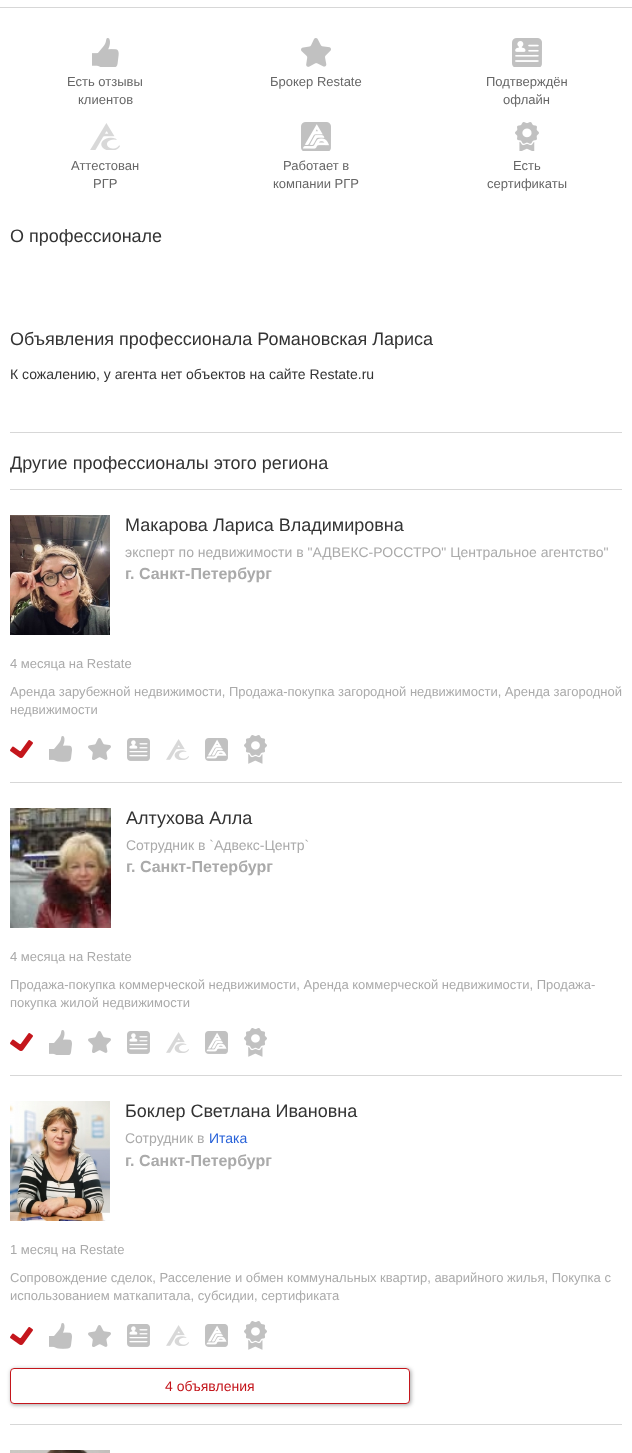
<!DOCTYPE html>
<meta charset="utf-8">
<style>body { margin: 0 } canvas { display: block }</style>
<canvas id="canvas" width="632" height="1453"></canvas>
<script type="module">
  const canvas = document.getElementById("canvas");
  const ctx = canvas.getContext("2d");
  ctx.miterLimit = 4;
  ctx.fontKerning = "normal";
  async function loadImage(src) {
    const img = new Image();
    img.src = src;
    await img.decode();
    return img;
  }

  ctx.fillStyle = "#ffffff";
  ctx.fillRect(0, 0, 632, 1453);
  ctx.fillStyle = "#d7d7d7";
  ctx.fillRect(0, 7, 632, 1);
  ctx.drawImage(await loadImage("img1.png"), 92, 38, 27, 29);
  ctx.font = "13px Liberation Sans";
  ctx.fillStyle = "#666666";
  ctx.fillText("Есть отзывы", 67, 86);
  ctx.fillText("клиентов", 78, 104);
  ctx.drawImage(await loadImage("img2.png"), 301, 38, 30, 29);
  ctx.fillText("Брокер Restate", 270, 86);
  ctx.drawImage(await loadImage("img3.png"), 512, 38, 30, 29);
  ctx.fillText("Подтверждён", 486, 86);
  ctx.fillText("офлайн", 503, 104);
  ctx.drawImage(await loadImage("img4.png"), 90, 123, 30, 27);
  ctx.fillText("Аттестован", 71, 170);
  ctx.fillText("РГР", 93, 188);
  ctx.drawImage(await loadImage("img5.png"), 301, 122, 30, 29);
  ctx.fillText("Работает в", 283, 170);
  ctx.fillText("компании РГР", 273, 188);
  ctx.drawImage(await loadImage("img6.png"), 515, 122, 24, 29);
  ctx.fillText("Есть", 513, 170);
  ctx.fillText("сертификаты", 487, 188);
  ctx.font = "18px Liberation Sans";
  ctx.fillStyle = "#333333";
  ctx.fillText("О профессионале", 10, 242);
  ctx.fillText("Объявления профессионала Романовская Лариса", 10, 345);
  ctx.font = "14px Liberation Sans";
  ctx.fillText("К сожалению, у агента нет объектов на сайте Restate.ru", 10, 379);
  ctx.fillStyle = "#d7d7d7";
  ctx.fillRect(10, 432, 612, 1);
  ctx.font = "18px Liberation Sans";
  ctx.fillStyle = "#333333";
  ctx.fillText("Другие профессионалы этого региона", 10, 469);
  ctx.fillStyle = "#d7d7d7";
  ctx.fillRect(10, 489, 612, 1);
  ctx.fillRect(10, 782, 612, 1);
  ctx.drawImage(await loadImage("img7.png"), 10, 515, 100, 120);
  ctx.fillStyle = "#333333";
  ctx.fillText("Макарова Лариса Владимировна", 125, 531);
  ctx.font = "14px Liberation Sans";
  ctx.fillStyle = "#aaaaaa";
  ctx.fillText("эксперт по недвижимости в \"АДВЕКС-РОССТРО\" Центральное агентство\"", 125, 557);
  ctx.font = "bold 16px Liberation Sans";
  ctx.fillText("г. Санкт-Петербург", 125, 579);
  ctx.font = "13px Liberation Sans";
  ctx.fillText("4 месяца на Restate", 10, 668);
  ctx.fillText("Аренда зарубежной недвижимости, Продажа-покупка загородной недвижимости, Аренда загородной", 10, 696);
  ctx.fillText("недвижимости", 10, 714);
  ctx.drawImage(await loadImage("img8.png"), 10, 740, 23, 18);
  ctx.drawImage(await loadImage("img9.png"), 49, 736, 23, 26);
  ctx.drawImage(await loadImage("img10.png"), 88, 738, 23, 22);
  ctx.drawImage(await loadImage("img11.png"), 127, 738, 23, 23);
  ctx.drawImage(await loadImage("img12.png"), 166, 739, 23, 21);
  ctx.drawImage(await loadImage("img13.png"), 205, 738, 23, 23);
  ctx.drawImage(await loadImage("img14.png"), 244, 735, 23, 29);
  ctx.fillStyle = "#d7d7d7";
  ctx.fillRect(10, 1075, 612, 1);
  ctx.drawImage(await loadImage("img15.png"), 10, 808, 101, 120);
  ctx.font = "18px Liberation Sans";
  ctx.fillStyle = "#333333";
  ctx.fillText("Алтухова Алла", 126, 824);
  ctx.font = "14px Liberation Sans";
  ctx.fillStyle = "#aaaaaa";
  ctx.fillText("Сотрудник в `Адвекс-Центр`", 126, 850);
  ctx.font = "bold 16px Liberation Sans";
  ctx.fillText("г. Санкт-Петербург", 126, 872);
  ctx.font = "13px Liberation Sans";
  ctx.fillText("4 месяца на Restate", 10, 961);
  ctx.fillText("Продажа-покупка коммерческой недвижимости, Аренда коммерческой недвижимости, Продажа-", 10, 989);
  ctx.fillText("покупка жилой недвижимости", 10, 1007);
  ctx.drawImage(await loadImage("img8.png"), 10, 1033, 23, 18);
  ctx.drawImage(await loadImage("img16.png"), 49, 1030, 23, 25);
  ctx.drawImage(await loadImage("img10.png"), 88, 1031, 23, 22);
  ctx.drawImage(await loadImage("img11.png"), 127, 1031, 23, 23);
  ctx.drawImage(await loadImage("img12.png"), 166, 1032, 23, 21);
  ctx.drawImage(await loadImage("img13.png"), 205, 1031, 23, 23);
  ctx.drawImage(await loadImage("img14.png"), 244, 1028, 23, 29);
  ctx.fillStyle = "#d7d7d7";
  ctx.fillRect(10, 1424, 612, 1);
  ctx.drawImage(await loadImage("img17.png"), 10, 1101, 100, 120);
  ctx.font = "18px Liberation Sans";
  ctx.fillStyle = "#333333";
  ctx.fillText("Боклер Светлана Ивановна", 125, 1117);
  ctx.font = "14px Liberation Sans";
  ctx.fillStyle = "#aaaaaa";
  ctx.fillText("Сотрудник в", 125, 1143);
  ctx.fillStyle = "#2761d8";
  ctx.fillText("Итака", 209, 1143);
  ctx.font = "bold 16px Liberation Sans";
  ctx.fillStyle = "#aaaaaa";
  ctx.fillText("г. Санкт-Петербург", 125, 1166);
  ctx.font = "13px Liberation Sans";
  ctx.fillText("1 месяц на Restate", 10, 1254);
  ctx.fillText("Сопровождение сделок, Расселение и обмен коммунальных квартир, аварийного жилья, Покупка с", 10, 1282);
  ctx.fillText("использованием маткапитала, субсидии, сертификата", 10, 1300);
  ctx.drawImage(await loadImage("img8.png"), 10, 1327, 23, 18);
  ctx.drawImage(await loadImage("img9.png"), 49, 1323, 23, 26);
  ctx.drawImage(await loadImage("img10.png"), 88, 1325, 23, 22);
  ctx.drawImage(await loadImage("img11.png"), 127, 1324, 23, 23);
  ctx.drawImage(await loadImage("img12.png"), 166, 1325, 23, 21);
  ctx.drawImage(await loadImage("img13.png"), 205, 1324, 23, 23);
  ctx.drawImage(await loadImage("img14.png"), 244, 1321, 23, 29);
  ctx.save();
  ctx.beginPath();
  ctx.moveTo(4, 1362);
  ctx.lineTo(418, 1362);
  ctx.lineTo(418, 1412);
  ctx.lineTo(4, 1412);
  ctx.closePath();
  ctx.moveTo(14, 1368);
  ctx.lineTo(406, 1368);
  ctx.bezierCurveTo(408, 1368, 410, 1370, 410, 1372);
  ctx.lineTo(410, 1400);
  ctx.bezierCurveTo(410, 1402, 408, 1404, 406, 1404);
  ctx.lineTo(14, 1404);
  ctx.bezierCurveTo(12, 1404, 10, 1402, 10, 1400);
  ctx.lineTo(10, 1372);
  ctx.bezierCurveTo(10, 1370, 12, 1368, 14, 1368);
  ctx.closePath();
  ctx.clip("evenodd");
  ctx.fillStyle = "rgba(0, 0, 0, 0.36)";
  ctx.filter = "blur(2px)";
  ctx.beginPath();
  ctx.roundRect(11, 1369, 400, 36, 4);
  ctx.fill();
  ctx.filter = "none";
  ctx.restore();
  ctx.beginPath();
  ctx.roundRect(10.5, 1368.5, 399, 35, 3.5);
  ctx.strokeStyle = "#c4161c";
  ctx.stroke();
  ctx.font = "14px Liberation Sans";
  ctx.fillStyle = "#c4161c";
  ctx.fillText("4 объявления", 165, 1391);
  ctx.drawImage(await loadImage("img18.png"), 10, 1450, 100, 3);
</script>
